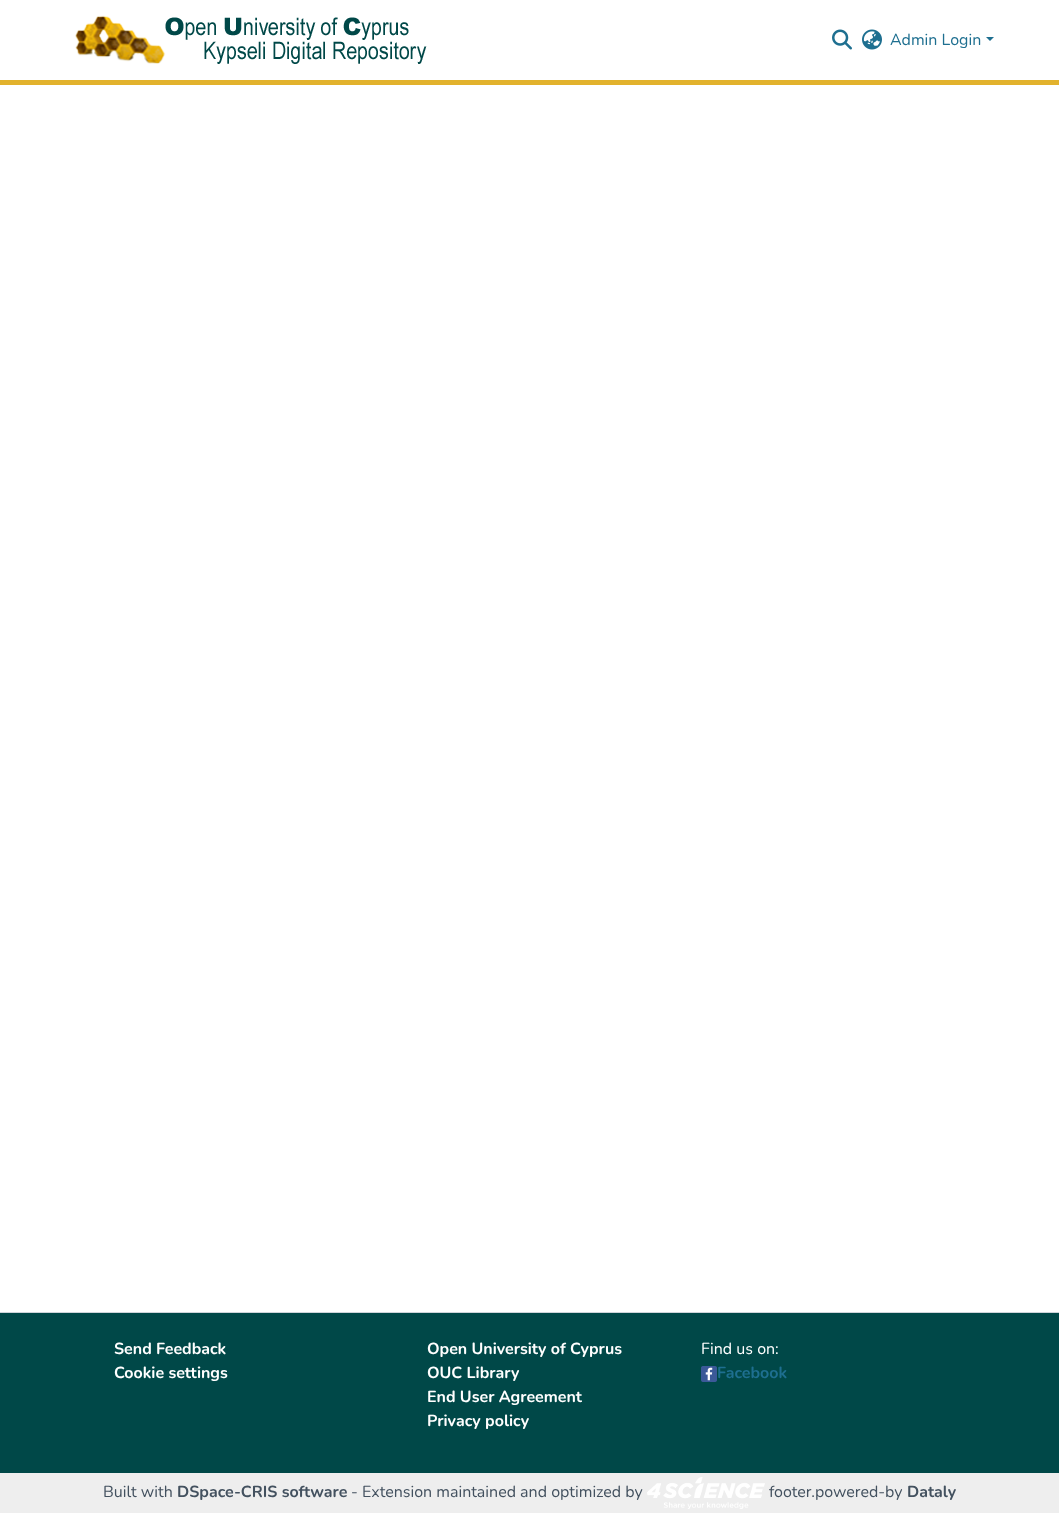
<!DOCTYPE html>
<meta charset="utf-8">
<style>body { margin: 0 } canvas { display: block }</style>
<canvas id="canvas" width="1059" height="1513"></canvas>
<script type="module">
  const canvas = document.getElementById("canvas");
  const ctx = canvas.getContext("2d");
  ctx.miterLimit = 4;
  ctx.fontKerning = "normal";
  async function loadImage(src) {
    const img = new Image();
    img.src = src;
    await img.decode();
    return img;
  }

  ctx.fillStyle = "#ffffff";
  ctx.fillRect(0, 0, 1059, 1513);
  ctx.fillStyle = "#e2b22d";
  ctx.fillRect(0, 80, 1059, 5);
  ctx.drawImage(await loadImage("img1.png"), 75, 15, 352, 49);
  ctx.drawImage(await loadImage("img2.png"), 832, 29, 20, 21);
  ctx.drawImage(await loadImage("img3.png"), 862, 29, 20, 21);
  ctx.font = "16px Nunito";
  ctx.fillStyle = "#1e6f90";
  ctx.fillText("Admin Login", 890, 45);
  ctx.beginPath();
  ctx.moveTo(986, 37);
  ctx.lineTo(994, 37);
  ctx.lineTo(990, 41);
  ctx.closePath();
  ctx.fill();
  ctx.fillStyle = "#eeeeee";
  ctx.fillRect(0, 1473, 1059, 40);
  ctx.fillStyle = "#ced4da";
  ctx.fillRect(0, 1312, 1059, 1);
  ctx.fillStyle = "#004848";
  ctx.fillRect(0, 1313, 1059, 160);
  ctx.font = "bold 16px Nunito";
  ctx.fillStyle = "#ffffff";
  ctx.fillText("Send Feedback", 114, 1354);
  ctx.fillText("Cookie settings", 114, 1378);
  ctx.fillText("Open University of Cyprus", 427, 1354);
  ctx.fillText("OUC Library", 427, 1378);
  ctx.fillText("End User Agreement", 427, 1402);
  ctx.fillText("Privacy policy", 427, 1426);
  ctx.font = "16px Nunito";
  ctx.fillText("Find us on:", 701, 1354);
  ctx.drawImage(await loadImage("img4.png"), 701, 1366, 16, 16);
  ctx.font = "bold 16px Nunito";
  ctx.fillStyle = "#1e6f90";
  ctx.fillText("Facebook", 717, 1378);
  ctx.font = "16px Nunito";
  ctx.fillStyle = "#43515f";
  ctx.fillText("Built with", 103, 1497);
  ctx.font = "bold 16px Nunito";
  ctx.fillText("DSpace-CRIS software", 177, 1497);
  ctx.font = "16px Nunito";
  ctx.fillText("- Extension maintained and optimized by", 351, 1497);
  ctx.drawImage(await loadImage("img5.png"), 647, 1477, 118, 32);
  ctx.fillText("footer.powered-by", 769, 1497);
  ctx.font = "bold 16px Nunito";
  ctx.fillText("Dataly", 907, 1497);
</script>
